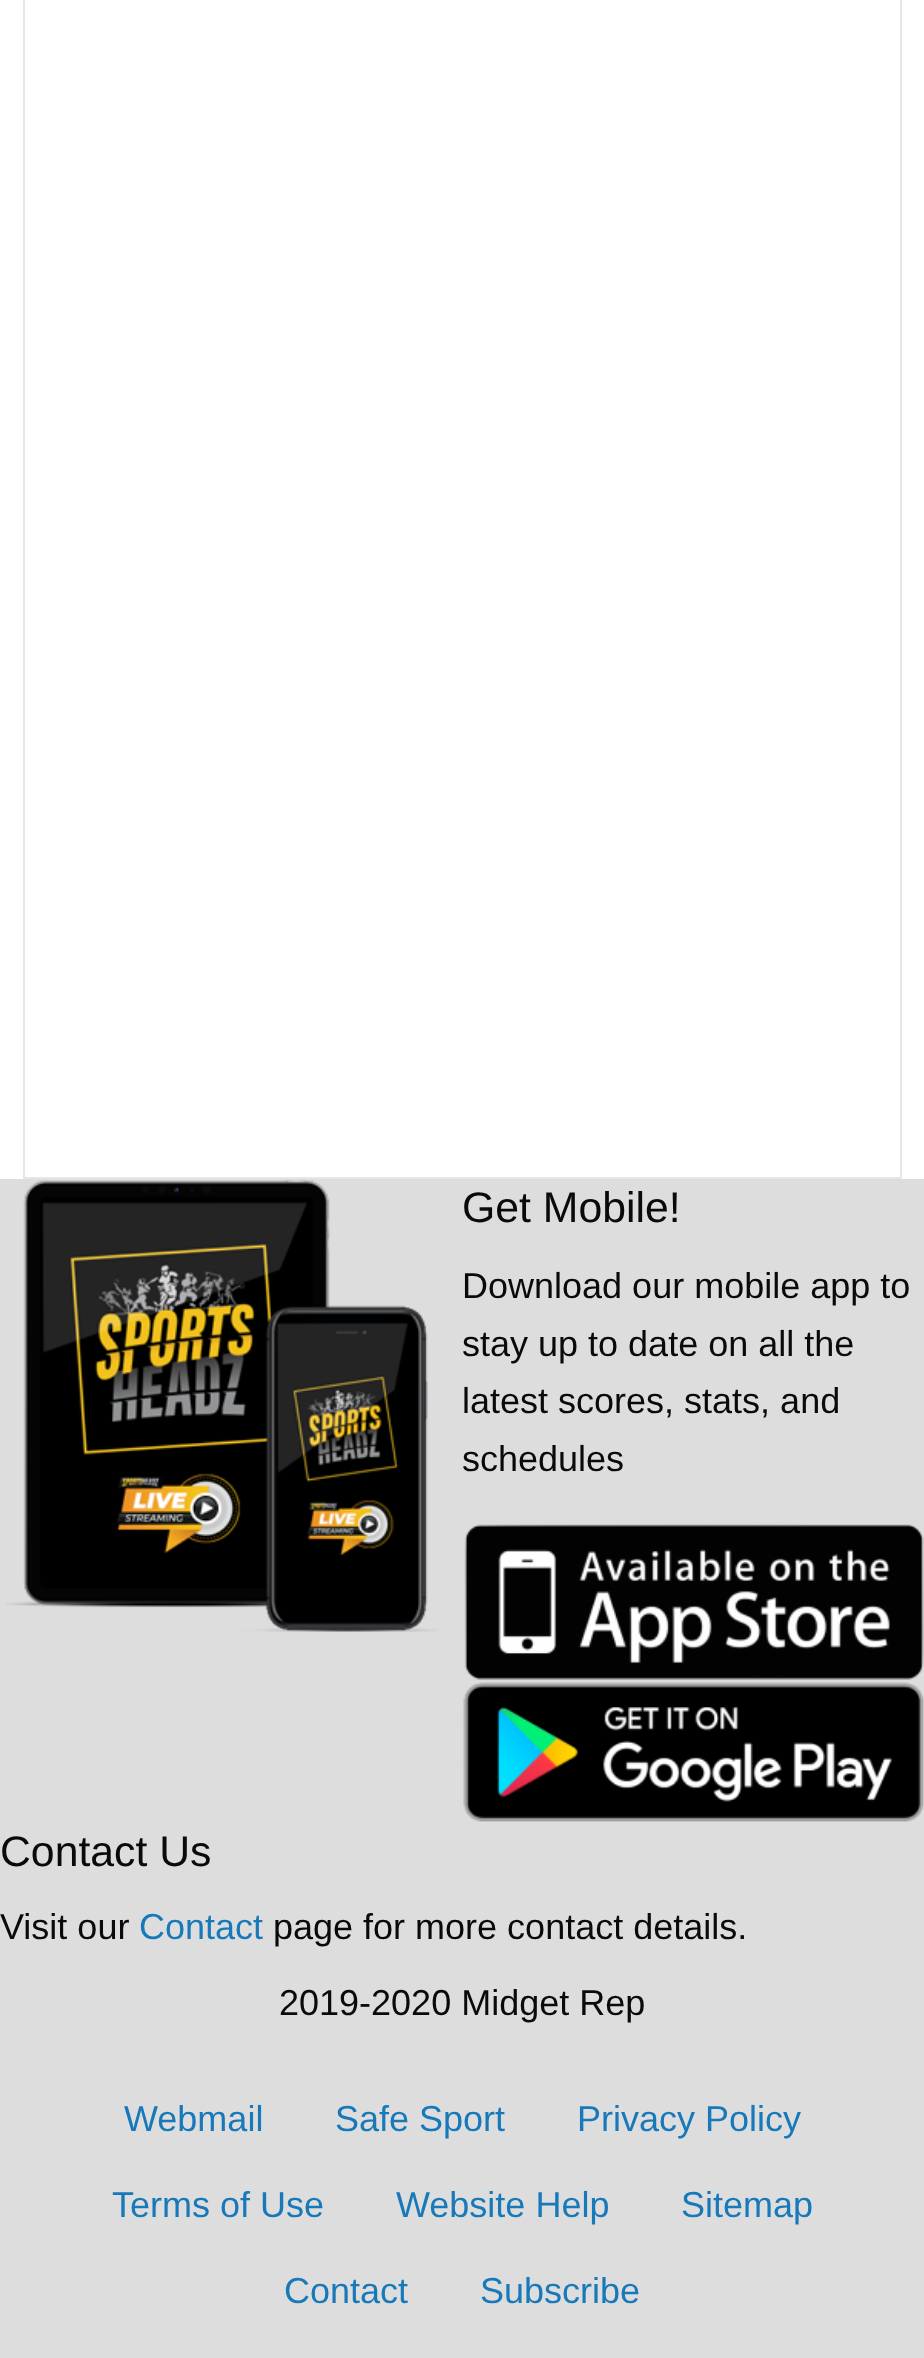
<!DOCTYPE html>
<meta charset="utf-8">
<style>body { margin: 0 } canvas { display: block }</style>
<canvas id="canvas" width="924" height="2358"></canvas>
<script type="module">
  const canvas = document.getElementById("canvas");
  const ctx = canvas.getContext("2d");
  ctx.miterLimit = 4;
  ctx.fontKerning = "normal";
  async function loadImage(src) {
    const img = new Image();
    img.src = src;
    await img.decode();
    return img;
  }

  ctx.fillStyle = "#ffffff";
  ctx.fillRect(0, 0, 924, 2358);
  ctx.fillStyle = "#e6e6e6";
  ctx.fillRect(900, 0, 2, 1179);
  ctx.fillRect(23, 1177, 879, 2);
  ctx.fillRect(23, 0, 2, 1179);
  ctx.fillStyle = "#dddddd";
  ctx.fillRect(0, 1179, 924, 1179);
  ctx.drawImage(await loadImage("img1.png"), 6, 1179, 432, 453);
  ctx.font = "42.75px Liberation Sans";
  ctx.fillStyle = "#0a0a0a";
  ctx.fillText("Get Mobile!", 462, 1222);
  ctx.font = "36px Liberation Sans";
  ctx.fillText("Download our mobile app to", 462, 1298);
  ctx.fillText("stay up to date on all the", 462, 1356);
  ctx.fillText("latest scores, stats, and", 462, 1413);
  ctx.fillText("schedules", 462, 1471);
  ctx.drawImage(await loadImage("img2.png"), 464, 1524, 460, 156);
  ctx.drawImage(await loadImage("img3.png"), 463, 1682, 461, 140);
  ctx.font = "42.75px Liberation Sans";
  ctx.fillText("Contact Us", 0, 1866);
  ctx.font = "36px Liberation Sans";
  ctx.fillText("Visit our", 0, 1939);
  ctx.fillStyle = "#1779ba";
  ctx.fillText("Contact", 139, 1939);
  ctx.fillStyle = "#0a0a0a";
  ctx.fillText("page for more contact details.", 273, 1939);
  ctx.fillText("2019-2020 Midget Rep", 279, 2015);
  ctx.fillStyle = "#1779ba";
  ctx.fillText("Webmail", 124, 2131);
  ctx.fillText("Safe Sport", 335, 2131);
  ctx.fillText("Privacy Policy", 577, 2131);
  ctx.fillText("Terms of Use", 112, 2217);
  ctx.fillText("Website Help", 396, 2217);
  ctx.fillText("Sitemap", 681, 2217);
  ctx.fillText("Contact", 284, 2303);
  ctx.fillText("Subscribe", 480, 2303);
</script>
